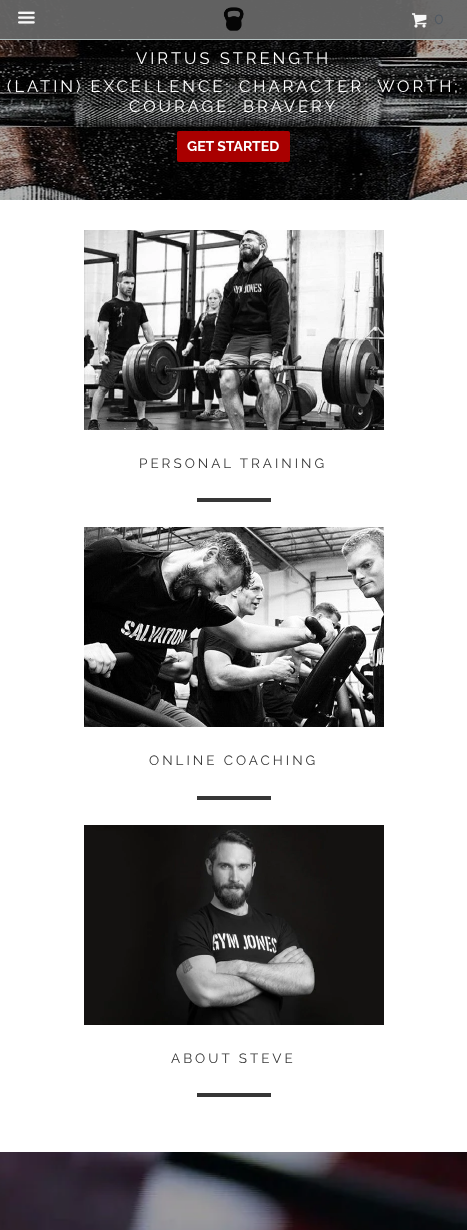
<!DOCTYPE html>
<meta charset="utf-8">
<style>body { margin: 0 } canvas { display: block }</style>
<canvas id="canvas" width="467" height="1230"></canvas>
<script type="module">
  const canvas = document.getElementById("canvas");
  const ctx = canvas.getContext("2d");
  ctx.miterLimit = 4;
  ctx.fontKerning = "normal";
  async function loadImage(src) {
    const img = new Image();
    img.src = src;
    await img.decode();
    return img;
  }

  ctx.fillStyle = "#ffffff";
  ctx.fillRect(0, 0, 467, 1230);
  ctx.drawImage(await loadImage("img4.png"), 0, 0, 467, 200);
  ctx.fillStyle = "rgba(102, 102, 102, 0.95)";
  ctx.fillRect(0, 0, 467, 40);
  ctx.fillStyle = "rgba(184, 198, 198, 0.95)";
  ctx.fillRect(0, 39, 467, 1);
  ctx.drawImage(await loadImage("img1.png"), 18, 11, 17, 13);
  ctx.drawImage(await loadImage("img2.png"), 223, 7, 21, 24);
  ctx.drawImage(await loadImage("img3.png"), 412, 13, 15, 15);
  ctx.letterSpacing = "2px";
  ctx.font = "16px Raleway";
  ctx.fillStyle = "#505963";
  ctx.fillText("0", 434, 24);
  ctx.letterSpacing = "3px";
  ctx.font = "16.5px Raleway";
  ctx.fillStyle = "#ffffff";
  ctx.fillText("VIRTUS STRENGTH", 136, 64);
  ctx.fillText("(LATIN) EXCELLENCE; CHARACTER; WORTH;", 7, 92);
  ctx.fillText("COURAGE; BRAVERY", 129, 112);
  ctx.fillStyle = "#a90000";
  ctx.beginPath();
  ctx.roundRect(177, 131, 113, 31, 2);
  ctx.fill();
  ctx.letterSpacing = "0px";
  ctx.font = "bold 14px Raleway";
  ctx.fillStyle = "#ffffff";
  ctx.fillText("GET STARTED", 187, 151);
  ctx.drawImage(await loadImage("img5.png"), 84, 230, 300, 200);
  ctx.letterSpacing = "3px";
  ctx.font = "13.5px Raleway";
  ctx.fillStyle = "#363636";
  ctx.fillText("PERSONAL TRAINING", 139, 468);
  ctx.fillRect(197, 498, 74, 4);
  ctx.drawImage(await loadImage("img6.png"), 84, 527, 300, 200);
  ctx.fillText("ONLINE COACHING", 149, 765);
  ctx.fillRect(197, 796, 74, 4);
  ctx.drawImage(await loadImage("img7.png"), 84, 825, 300, 200);
  ctx.fillText("ABOUT STEVE", 171, 1063);
  ctx.fillRect(197, 1093, 74, 4);
  ctx.drawImage(await loadImage("img8.png"), 0, 1152, 467, 78);
</script>
